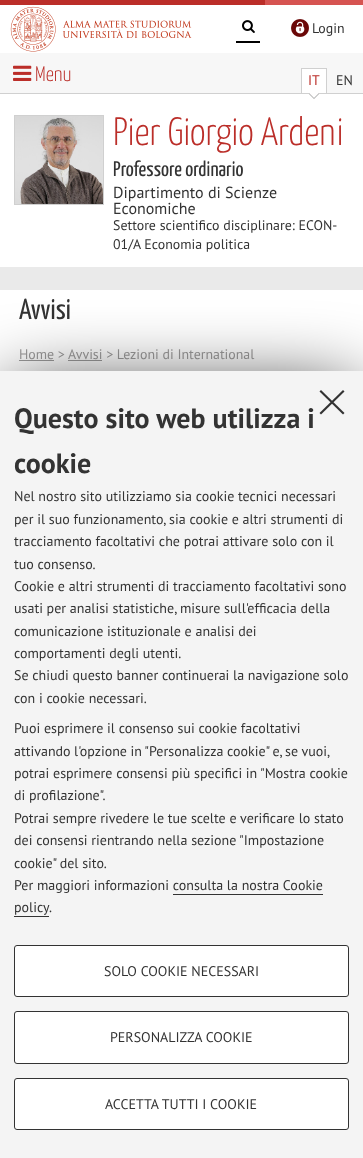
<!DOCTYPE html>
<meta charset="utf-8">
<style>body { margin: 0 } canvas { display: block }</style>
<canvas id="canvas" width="363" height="1158"></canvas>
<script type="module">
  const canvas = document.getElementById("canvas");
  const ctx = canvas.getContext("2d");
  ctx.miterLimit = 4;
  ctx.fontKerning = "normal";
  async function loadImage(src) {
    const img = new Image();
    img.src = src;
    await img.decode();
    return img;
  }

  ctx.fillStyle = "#eaeaea";
  ctx.fillRect(0, 0, 363, 1158);
  ctx.drawImage(await loadImage("img1.png"), 0, 0, 363, 5);
  ctx.fillStyle = "#ffffff";
  ctx.fillRect(0, 5, 363, 48);
  ctx.drawImage(await loadImage("img2.png"), 10, 6, 182, 46);
  ctx.fillStyle = "#000000";
  ctx.fillRect(236, 41, 24, 2);
  ctx.drawImage(await loadImage("img3.png"), 242, 20, 13, 13);
  ctx.drawImage(await loadImage("img4.png"), 291, 19, 18, 18);
  ctx.font = "13.9px PT Sans";
  ctx.fillStyle = "#333333";
  ctx.fillText("Login", 312, 33);
  ctx.fillStyle = "#f7f7f7";
  ctx.fillRect(0, 53, 363, 40);
  ctx.fillStyle = "#d0d0d0";
  ctx.fillRect(0, 93, 363, 1);
  ctx.drawImage(await loadImage("img5.png"), 13, 65, 19, 16);
  ctx.font = "300 21.25px Yanone Kaffeesatz";
  ctx.fillStyle = "#bb2e29";
  ctx.fillText("Menu", 35, 81);
  ctx.fillStyle = "#ffffff";
  ctx.fillRect(302, 69, 24, 24);
  ctx.fillStyle = "#d0d0d0";
  ctx.fillRect(301, 68, 26, 1);
  ctx.fillRect(326, 68, 1, 25);
  ctx.fillRect(301, 68, 1, 25);
  ctx.font = "13.9px PT Sans";
  ctx.fillStyle = "#bb2e29";
  ctx.fillText("IT", 308, 85);
  ctx.fillStyle = "#ffffff";
  ctx.fillRect(0, 94, 363, 173);
  ctx.drawImage(await loadImage("img6.png"), 309, 93, 10, 6);
  ctx.fillStyle = "#333333";
  ctx.fillText("EN", 336, 85);
  ctx.strokeStyle = "#d0d0d0";
  ctx.strokeRect(14.5, 115.5, 89, 89);
  ctx.drawImage(await loadImage("img7.png"), 15, 116, 88, 88);
  ctx.font = "300 39.5px Yanone Kaffeesatz";
  ctx.fillStyle = "#bb2e29";
  ctx.fillText("Pier Giorgio Ardeni", 113, 145);
  ctx.font = "21.25px Yanone Kaffeesatz";
  ctx.fillStyle = "#333333";
  ctx.fillText("Professore ordinario", 113, 176);
  ctx.font = "16px PT Sans";
  ctx.fillText("Dipartimento di Scienze", 113, 198);
  ctx.fillText("Economiche", 113, 214);
  ctx.font = "13.9px PT Sans";
  ctx.fillText("Settore scientifico disciplinare: ECON-", 113, 230);
  ctx.fillText("01/A Economia politica", 113, 249);
  ctx.fillStyle = "#ffffff";
  ctx.fillRect(0, 290, 363, 81);
  ctx.font = "29px Yanone Kaffeesatz";
  ctx.fillStyle = "#333333";
  ctx.fillText("Avvisi", 19, 319);
  ctx.font = "13.9px PT Sans";
  ctx.fillStyle = "#9e9d9d";
  ctx.fillText("Home >", 19, 359);
  ctx.fillRect(19, 360, 35, 1);
  ctx.fillText("Avvisi > Lezioni di International", 68, 359);
  ctx.fillRect(68, 360, 34, 1);
  ctx.fillStyle = "#000000";
  ctx.filter = "blur(40px)";
  ctx.beginPath();
  ctx.rect(8, 395, 347, 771);
  ctx.fill();
  ctx.filter = "none";
  ctx.fillStyle = "#f4f4f4";
  ctx.fillRect(0, 371, 363, 787);
  ctx.fillStyle = "#333333";
  ctx.beginPath();
  ctx.moveTo(343, 390);
  ctx.lineTo(344.5, 391.5);
  ctx.lineTo(321, 414.5);
  ctx.lineTo(319.5, 413);
  ctx.closePath();
  ctx.fill();
  ctx.beginPath();
  ctx.moveTo(319.5, 391.5);
  ctx.lineTo(321, 390);
  ctx.lineTo(344.5, 413);
  ctx.lineTo(343, 414.5);
  ctx.closePath();
  ctx.fill();
  ctx.font = "bold 28px PT Sans";
  ctx.fillText("Questo sito web utilizza i", 14, 428);
  ctx.fillText("cookie", 14, 473);
  ctx.font = "14px PT Sans";
  ctx.fillText("Nel nostro sito utilizziamo sia cookie tecnici necessari", 14, 501);
  ctx.fillText("per il suo funzionamento, sia cookie e altri strumenti di", 14, 524);
  ctx.fillText("tracciamento facoltativi che potrai attivare solo con il", 14, 546);
  ctx.fillText("tuo consenso.", 14, 569);
  ctx.fillText("Cookie e altri strumenti di tracciamento facoltativi sono", 14, 591);
  ctx.fillText("usati per analisi statistiche, misure sull'efficacia della", 14, 613);
  ctx.fillText("comunicazione istituzionale e analisi dei", 14, 636);
  ctx.fillText("comportamenti degli utenti.", 14, 658);
  ctx.fillText("Se chiudi questo banner continuerai la navigazione solo", 14, 680);
  ctx.fillText("con i cookie necessari.", 14, 703);
  ctx.fillText("Puoi esprimere il consenso sui cookie facoltativi", 14, 733);
  ctx.wordSpacing = "-0.25px";
  ctx.fillText("attivando l'opzione in \"Personalizza cookie\" e, se vuoi,", 14, 756);
  ctx.wordSpacing = "0px";
  ctx.fillText("potrai esprimere consensi più specifici in \"Mostra cookie", 14, 778);
  ctx.fillText("di profilazione\".", 14, 800);
  ctx.fillText("Potrai sempre rivedere le tue scelte e verificare lo stato", 14, 823);
  ctx.fillText("dei consensi rientrando nella sezione \"Impostazione", 14, 845);
  ctx.fillText("cookie\" del sito.", 14, 868);
  ctx.fillText("Per maggiori informazioni consulta la nostra Cookie", 14, 890);
  ctx.fillText("policy", 14, 912);
  ctx.fillRect(173, 894, 150, 1);
  ctx.fillRect(14, 916, 35, 1);
  ctx.fillText(".", 49, 912);
  ctx.fillStyle = "#ffffff";
  ctx.beginPath();
  ctx.roundRect(14.5, 945.5, 334, 51, 2.5);
  ctx.fill();
  ctx.strokeStyle = "#333333";
  ctx.stroke();
  ctx.fillStyle = "#333333";
  ctx.fillText("SOLO COOKIE NECESSARI", 104, 976);
  ctx.fillStyle = "#ffffff";
  ctx.beginPath();
  ctx.roundRect(14.5, 1011.5, 334, 52, 2.5);
  ctx.fill();
  ctx.stroke();
  ctx.fillStyle = "#333333";
  ctx.fillText("PERSONALIZZA COOKIE", 110, 1042);
  ctx.fillStyle = "#ffffff";
  ctx.beginPath();
  ctx.roundRect(14.5, 1078.5, 334, 51, 2.5);
  ctx.fill();
  ctx.stroke();
  ctx.fillStyle = "#333333";
  ctx.fillText("ACCETTA TUTTI I COOKIE", 105, 1109);
</script>
